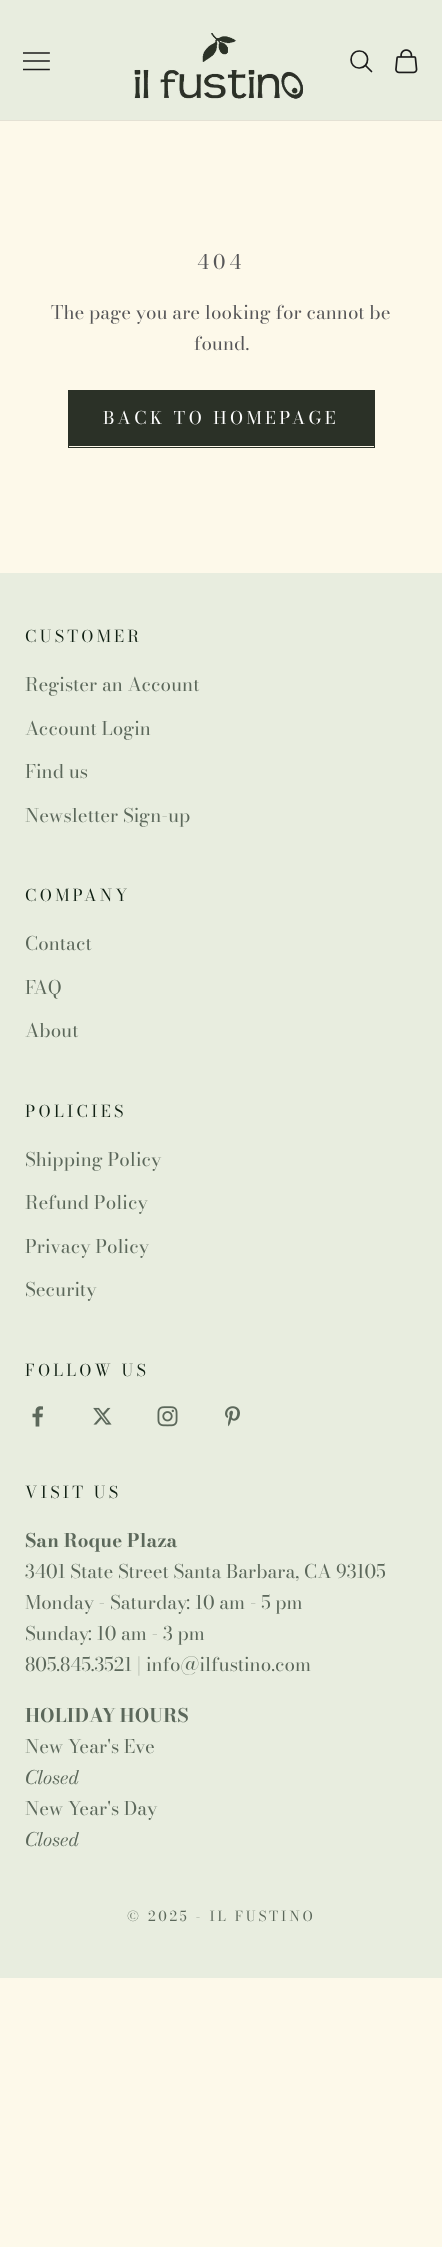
<!DOCTYPE html>
<meta charset="utf-8">
<style>body { margin: 0 } canvas { display: block }</style>
<canvas id="canvas" width="442" height="2247"></canvas>
<script type="module">
  const canvas = document.getElementById("canvas");
  const ctx = canvas.getContext("2d");
  ctx.miterLimit = 4;
  ctx.fontKerning = "normal";
  async function loadImage(src) {
    const img = new Image();
    img.src = src;
    await img.decode();
    return img;
  }

  ctx.fillStyle = "#fdf9ea";
  ctx.fillRect(0, 0, 442, 2247);
  ctx.fillStyle = "#e8eddf";
  ctx.fillRect(0, 0, 442, 120);
  ctx.fillStyle = "#e4e1d4";
  ctx.fillRect(0, 120, 442, 1);
  ctx.save();
  ctx.beginPath();
  ctx.rect(23, 48, 27, 27);
  ctx.clip();
  ctx.beginPath();
  ctx.moveTo(23.5, 69.5);
  ctx.lineTo(49, 69.5);
  ctx.moveTo(23.5, 61);
  ctx.lineTo(49, 61);
  ctx.moveTo(23.5, 53);
  ctx.lineTo(49, 53);
  ctx.strokeStyle = "#1c1c1c";
  ctx.lineWidth = 1.7;
  ctx.lineCap = "square";
  ctx.stroke();
  ctx.restore();
  ctx.drawImage(await loadImage("img1.png"), 134, 33, 170, 66);
  ctx.beginPath();
  ctx.moveTo(359.5, 51);
  ctx.bezierCurveTo(348, 51, 348.5, 68.5, 359.5, 68);
  ctx.bezierCurveTo(370.5, 67.5, 370, 51, 359.5, 51);
  ctx.closePath();
  ctx.strokeStyle = "#1c1c1c";
  ctx.lineWidth = 1.7;
  ctx.stroke();
  ctx.beginPath();
  ctx.moveTo(365.5, 65.5);
  ctx.lineTo(371.5, 71.5);
  ctx.lineCap = "round";
  ctx.stroke();
  ctx.drawImage(await loadImage("img2.png"), 395, 49, 23, 25);
  ctx.letterSpacing = "4px";
  ctx.font = "20px Bodoni Moda";
  ctx.fillStyle = "#575759";
  ctx.fillText("404", 197, 269);
  ctx.letterSpacing = "0px";
  ctx.font = "18.75px 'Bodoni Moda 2'";
  ctx.fillText("The page you are looking for cannot be", 51, 319);
  ctx.fillText("found.", 194, 350);
  ctx.fillStyle = "#2b3127";
  ctx.fillRect(69, 391, 305, 55);
  ctx.strokeStyle = "#2b3127";
  ctx.lineWidth = 1;
  ctx.strokeRect(68.5, 390.5, 306, 57);
  ctx.letterSpacing = "3.5px";
  ctx.font = "17.5px 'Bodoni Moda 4'";
  ctx.fillStyle = "#ffffff";
  ctx.fillText("BACK TO HOMEPAGE", 103, 424);
  ctx.fillStyle = "#e8eddf";
  ctx.fillRect(0, 573, 442, 1405);
  ctx.letterSpacing = "3.25px";
  ctx.font = "16.25px 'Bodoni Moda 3'";
  ctx.fillStyle = "#112114";
  ctx.fillText("CUSTOMER", 25, 642);
  ctx.letterSpacing = "0px";
  ctx.font = "18.75px 'Bodoni Moda 2'";
  ctx.fillStyle = "#5c685b";
  ctx.fillText("Register an Account", 25, 691);
  ctx.fillText("Account Login", 25, 735);
  ctx.fillText("Find us", 25, 778);
  ctx.fillText("Newsletter Sign-up", 25, 822);
  ctx.letterSpacing = "3.25px";
  ctx.font = "16.25px 'Bodoni Moda 3'";
  ctx.fillStyle = "#112114";
  ctx.fillText("COMPANY", 25, 901);
  ctx.letterSpacing = "0px";
  ctx.font = "18.75px 'Bodoni Moda 2'";
  ctx.fillStyle = "#5c685b";
  ctx.fillText("Contact", 25, 950);
  ctx.fillText("FAQ", 25, 994);
  ctx.fillText("About", 25, 1037);
  ctx.letterSpacing = "3.25px";
  ctx.font = "16.25px 'Bodoni Moda 3'";
  ctx.fillStyle = "#112114";
  ctx.fillText("POLICIES", 25, 1117);
  ctx.letterSpacing = "0px";
  ctx.font = "18.75px 'Bodoni Moda 2'";
  ctx.fillStyle = "#5c685b";
  ctx.fillText("Shipping Policy", 25, 1166);
  ctx.fillText("Refund Policy", 25, 1209);
  ctx.fillText("Privacy Policy", 25, 1253);
  ctx.fillText("Security", 25, 1296);
  ctx.letterSpacing = "3.25px";
  ctx.font = "16.25px 'Bodoni Moda 3'";
  ctx.fillStyle = "#112114";
  ctx.fillText("FOLLOW US", 25, 1376);
  ctx.drawImage(await loadImage("img3.png"), 32, 1406, 11, 21);
  ctx.drawImage(await loadImage("img4.png"), 93, 1407, 19, 18);
  ctx.drawImage(await loadImage("img5.png"), 157, 1406, 21, 21);
  ctx.drawImage(await loadImage("img6.png"), 225, 1406, 15, 21);
  ctx.fillText("VISIT US", 25, 1498);
  ctx.letterSpacing = "0px";
  ctx.font = "bold 18.75px Bodoni Moda";
  ctx.fillStyle = "#5c685b";
  ctx.fillText("San Roque Plaza", 25, 1547);
  ctx.font = "18.75px 'Bodoni Moda 2'";
  ctx.fillText("3401 State Street Santa Barbara, CA 93105", 25, 1578);
  ctx.fillText("Monday - Saturday: 10 am - 5 pm", 25, 1609);
  ctx.fillText("Sunday: 10 am - 3 pm", 25, 1640);
  ctx.fillText("805.845.3521 | info@ilfustino.com", 25, 1671);
  ctx.wordSpacing = "-1px";
  ctx.font = "bold 18.75px Bodoni Moda";
  ctx.fillText("HOLIDAY HOURS", 25, 1722);
  ctx.wordSpacing = "0px";
  ctx.font = "18.75px 'Bodoni Moda 2'";
  ctx.fillText("New Year's Eve", 25, 1753);
  ctx.font = "italic 18.75px Bodoni Moda";
  ctx.fillText("Closed", 25, 1784);
  ctx.font = "18.75px 'Bodoni Moda 2'";
  ctx.fillText("New Year's Day", 25, 1815);
  ctx.font = "italic 18.75px Bodoni Moda";
  ctx.fillText("Closed", 25, 1846);
  ctx.letterSpacing = "2.75px";
  ctx.font = "13.75px Bodoni Moda";
  ctx.fillText("© 2025 - IL FUSTINO", 127, 1921);
</script>
